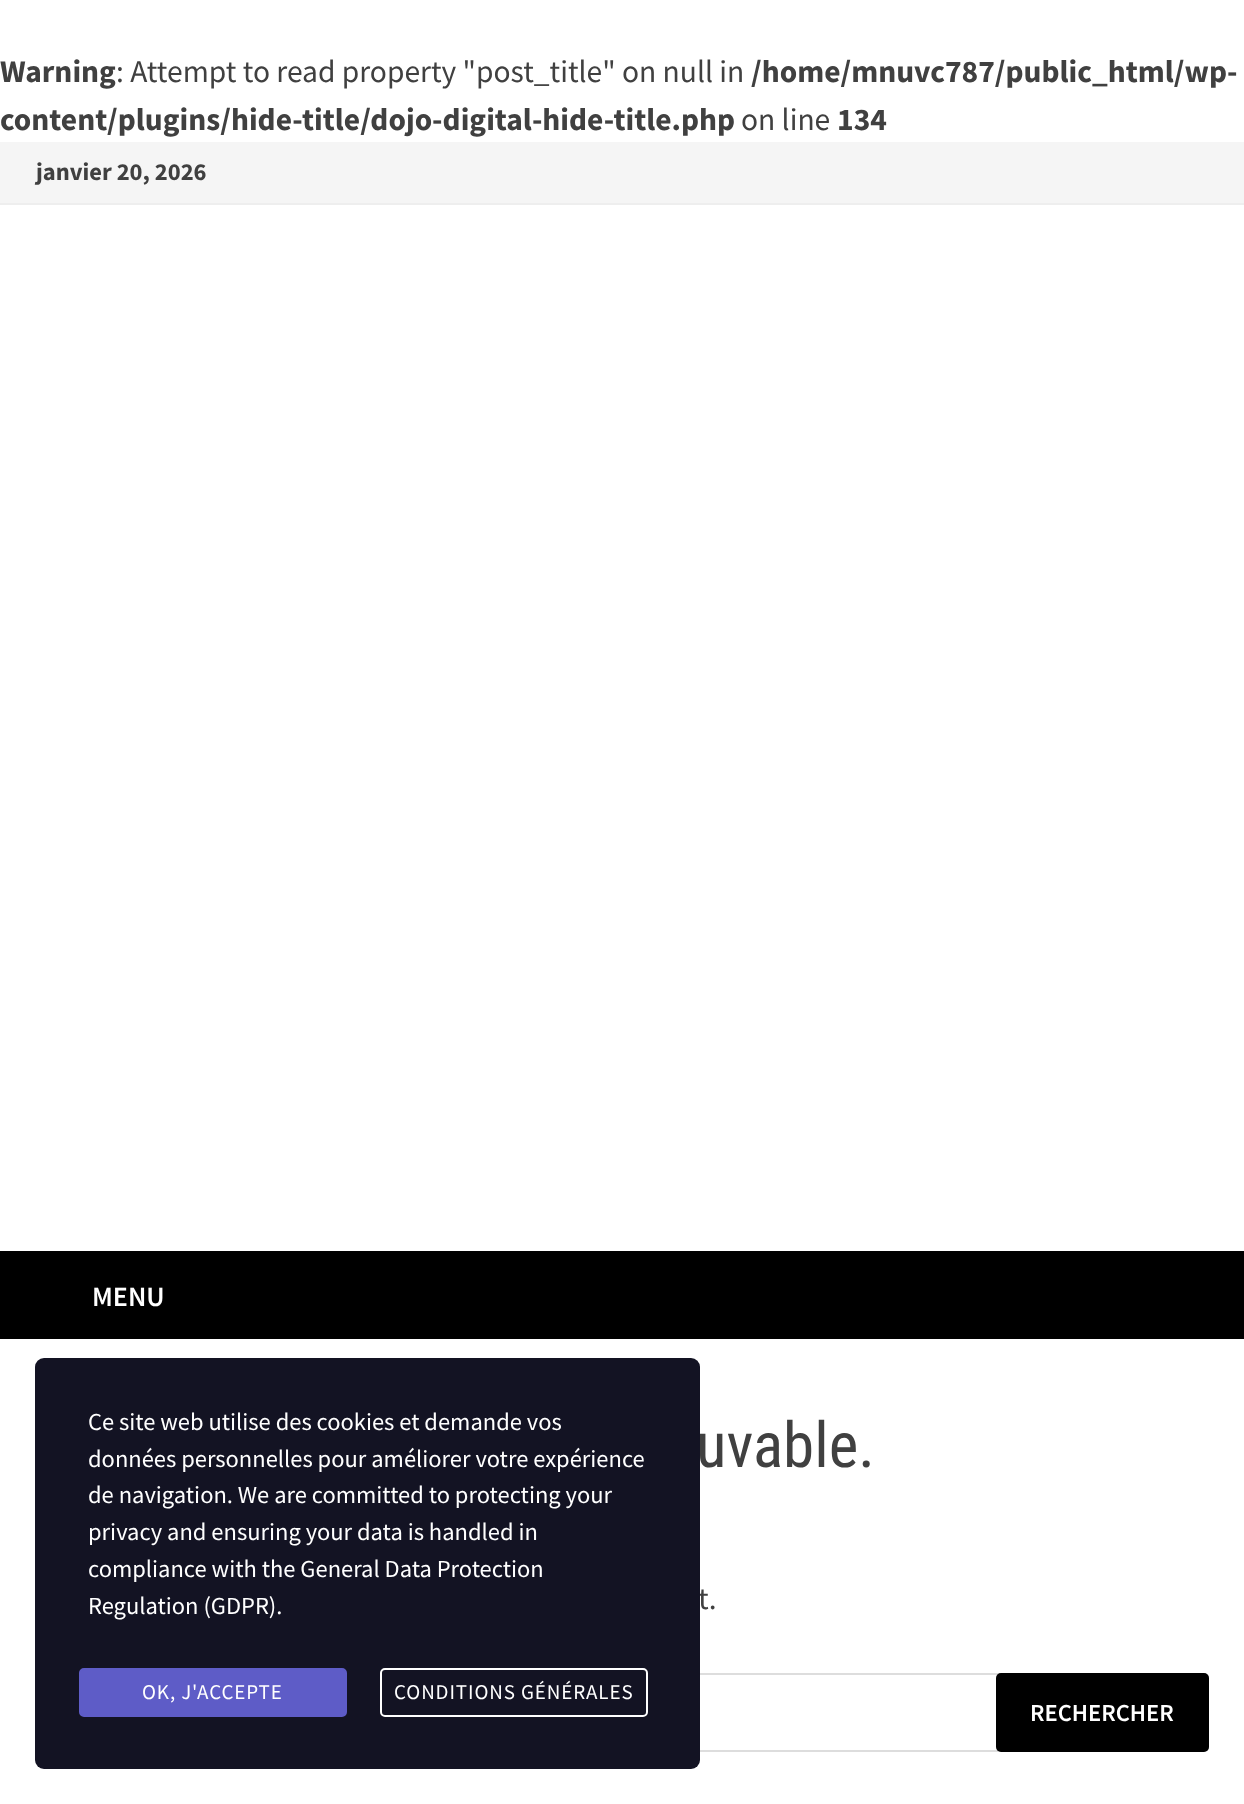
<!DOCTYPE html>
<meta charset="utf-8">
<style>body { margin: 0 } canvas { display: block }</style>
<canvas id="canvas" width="1244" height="1804"></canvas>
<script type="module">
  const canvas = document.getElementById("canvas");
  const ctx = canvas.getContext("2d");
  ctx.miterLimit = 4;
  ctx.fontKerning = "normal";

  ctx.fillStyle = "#ffffff";
  ctx.fillRect(0, 0, 1244, 1804);
  ctx.font = "bold 31.5px Source Sans Pro";
  ctx.fillStyle = "#404040";
  ctx.fillText("Warning", 0, 82);
  ctx.font = "31.5px Source Sans Pro";
  ctx.fillText(": Attempt to read property \"post_title\" on null in", 116, 82);
  ctx.font = "bold 31.5px Source Sans Pro";
  ctx.fillText("/home/mnuvc787/public_html/wp-", 751, 82);
  ctx.fillText("content/plugins/hide-title/dojo-digital-hide-title.php", 0, 130);
  ctx.font = "31.5px Source Sans Pro";
  ctx.fillText("on line", 741, 130);
  ctx.font = "bold 31.5px Source Sans Pro";
  ctx.fillText("134", 837, 130);
  ctx.fillStyle = "#f5f5f5";
  ctx.fillRect(0, 142, 1244, 61);
  ctx.fillStyle = "#eeeeee";
  ctx.fillRect(0, 203, 1244, 2);
  ctx.font = "bold 24.5px Source Sans Pro";
  ctx.fillStyle = "#404040";
  ctx.fillText("janvier 20, 2026", 36, 180);
  ctx.fillStyle = "#000000";
  ctx.fillRect(0, 1251, 1244, 88);
  ctx.font = "600 28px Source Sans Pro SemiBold";
  ctx.fillStyle = "#ffffff";
  ctx.fillText("MENU", 92, 1306);
  ctx.font = "63px Roboto Condensed";
  ctx.fillStyle = "#404040";
  ctx.fillText("uvable.", 696, 1467);
  ctx.font = "31.5px Source Sans Pro";
  ctx.fillText("t.", 698, 1609);
  ctx.beginPath();
  ctx.roundRect(36, 1674, 1172, 77, 4);
  ctx.strokeStyle = "#dddddd";
  ctx.lineWidth = 2;
  ctx.stroke();
  ctx.fillStyle = "#000000";
  ctx.beginPath();
  ctx.roundRect(996, 1673, 213, 79, 5);
  ctx.fill();
  ctx.font = "600 24.5px Source Sans Pro SemiBold";
  ctx.fillStyle = "#ffffff";
  ctx.fillText("RECHERCHER", 1030, 1721);
  ctx.fillStyle = "#131323";
  ctx.beginPath();
  ctx.roundRect(35, 1358, 665, 411, 9);
  ctx.fill();
  ctx.font = "24.5px Source Sans Pro";
  ctx.fillStyle = "#ffffff";
  ctx.fillText("Ce site web utilise des cookies et demande vos", 88, 1430);
  ctx.fillText("données personnelles pour améliorer votre expérience", 88, 1467);
  ctx.fillText("de navigation. We are committed to protecting your", 88, 1503);
  ctx.fillText("privacy and ensuring your data is handled in", 88, 1540);
  ctx.fillText("compliance with the General Data Protection", 88, 1577);
  ctx.fillText("Regulation (GDPR).", 88, 1614);
  ctx.fillStyle = "#5e5cc7";
  ctx.beginPath();
  ctx.roundRect(80, 1669, 266, 47, 4);
  ctx.fill();
  ctx.strokeStyle = "#5e5cc7";
  ctx.stroke();
  ctx.letterSpacing = "0.9px";
  ctx.font = "21px Source Sans Pro";
  ctx.fillStyle = "#ffffff";
  ctx.fillText("OK, J'ACCEPTE", 142, 1699);
  ctx.beginPath();
  ctx.roundRect(381, 1669, 266, 47, 4);
  ctx.strokeStyle = "#ffffff";
  ctx.stroke();
  ctx.fillText("CONDITIONS GÉNÉRALES", 394, 1699);
</script>
